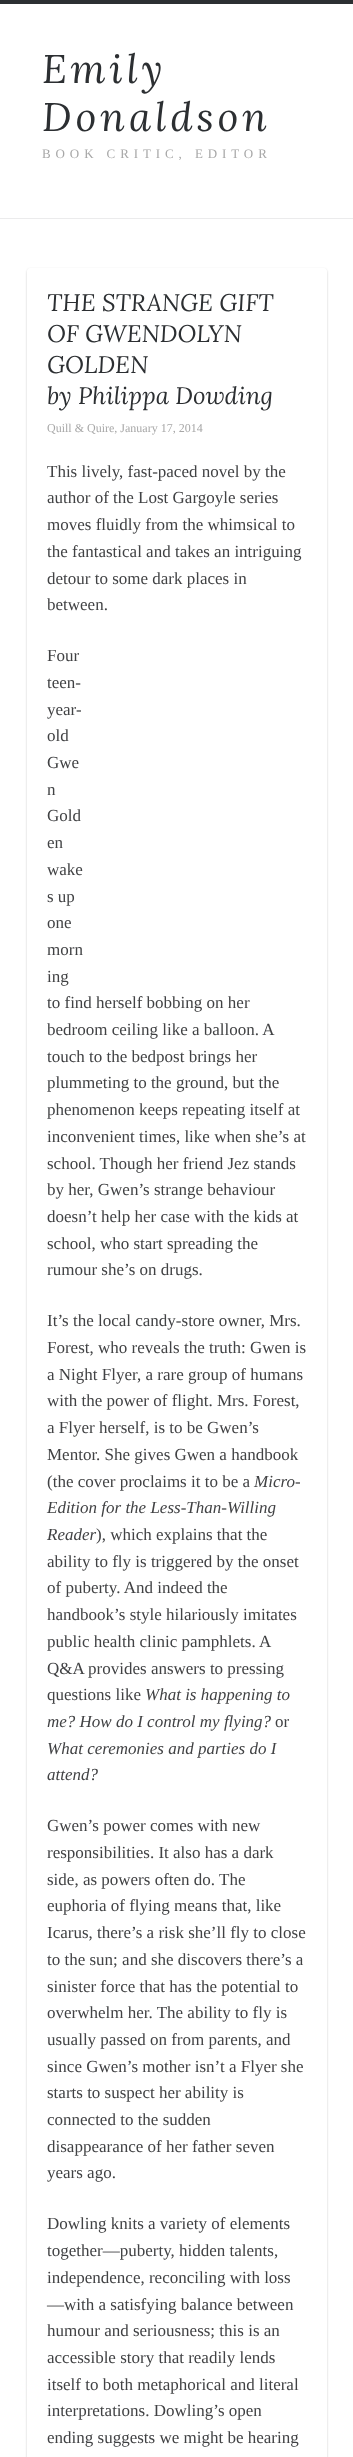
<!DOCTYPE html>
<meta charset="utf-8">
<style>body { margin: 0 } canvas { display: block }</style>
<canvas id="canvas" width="353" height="2457"></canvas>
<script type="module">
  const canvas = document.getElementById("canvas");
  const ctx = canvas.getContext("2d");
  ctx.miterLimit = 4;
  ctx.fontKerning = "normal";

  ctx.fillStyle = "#ffffff";
  ctx.fillRect(0, 0, 353, 2457);
  ctx.fillStyle = "#2c2f32";
  ctx.fillRect(0, 0, 353, 4);
  ctx.fillStyle = "#ebebec";
  ctx.fillRect(0, 218, 353, 1);
  ctx.letterSpacing = "4px";
  ctx.font = "italic 40px Lora";
  ctx.fillStyle = "#2c2f32";
  ctx.fillText("Emily", 42, 83);
  ctx.fillText("Donaldson", 42, 131);
  ctx.letterSpacing = "4.9px";
  ctx.font = "13px Liberation Serif";
  ctx.fillStyle = "#a7a7a7";
  ctx.fillText("BOOK CRITIC, EDITOR", 42, 158);
  ctx.save();
  ctx.beginPath();
  ctx.moveTo(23, 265);
  ctx.lineTo(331, 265);
  ctx.lineTo(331, 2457);
  ctx.lineTo(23, 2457);
  ctx.closePath();
  ctx.moveTo(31, 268);
  ctx.lineTo(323, 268);
  ctx.bezierCurveTo(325, 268, 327, 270, 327, 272);
  ctx.lineTo(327, 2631);
  ctx.bezierCurveTo(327, 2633, 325, 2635, 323, 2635);
  ctx.lineTo(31, 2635);
  ctx.bezierCurveTo(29, 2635, 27, 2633, 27, 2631);
  ctx.lineTo(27, 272);
  ctx.bezierCurveTo(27, 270, 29, 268, 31, 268);
  ctx.closePath();
  ctx.clip("evenodd");
  ctx.fillStyle = "rgba(0, 0, 0, 0.2)";
  ctx.filter = "blur(1px)";
  ctx.beginPath();
  ctx.roundRect(27, 269, 300, 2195, 4);
  ctx.fill();
  ctx.filter = "none";
  ctx.restore();
  ctx.fillStyle = "rgba(255, 255, 255, 0.85)";
  ctx.beginPath();
  ctx.roundRect(27, 268, 300, 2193, 4);
  ctx.fill();
  ctx.letterSpacing = "0px";
  ctx.font = "italic 24px Lora";
  ctx.fillStyle = "#2c2f32";
  ctx.fillText("THE STRANGE GIFT", 47, 311);
  ctx.fillText("OF GWENDOLYN", 47, 342);
  ctx.fillText("GOLDEN", 47, 373);
  ctx.fillText("by Philippa Dowding", 47, 404);
  ctx.font = "12px Liberation Serif";
  ctx.fillStyle = "#a7a7a7";
  ctx.fillText("Quill & Quire, January 17, 2014", 47, 432);
  ctx.font = "17px Liberation Serif";
  ctx.fillStyle = "#414244";
  ctx.fillText("This lively, fast-paced novel by the", 47, 477);
  ctx.fillText("author of the Lost Gargoyle series", 47, 503);
  ctx.fillText("moves fluidly from the whimsical to", 47, 530);
  ctx.fillText("the fantastical and takes an intriguing", 47, 557);
  ctx.fillText("detour to some dark places in", 47, 584);
  ctx.fillText("between.", 47, 610);
  ctx.fillText("Four", 47, 661);
  ctx.fillText("teen-", 47, 688);
  ctx.fillText("year-", 47, 715);
  ctx.fillText("old", 47, 741);
  ctx.fillText("Gwe", 47, 768);
  ctx.fillText("n", 47, 795);
  ctx.fillText("Gold", 47, 821);
  ctx.fillText("en", 47, 848);
  ctx.fillText("wake", 47, 875);
  ctx.fillText("s up", 47, 902);
  ctx.fillText("one", 47, 928);
  ctx.fillText("morn", 47, 955);
  ctx.fillText("ing", 47, 982);
  ctx.fillText("to find herself bobbing on her", 47, 1008);
  ctx.fillText("bedroom ceiling like a balloon. A", 47, 1035);
  ctx.fillText("touch to the bedpost brings her", 47, 1062);
  ctx.fillText("plummeting to the ground, but the", 47, 1088);
  ctx.fillText("phenomenon keeps repeating itself at", 47, 1115);
  ctx.fillText("inconvenient times, like when she’s at", 47, 1142);
  ctx.fillText("school. Though her friend Jez stands", 47, 1169);
  ctx.fillText("by her, Gwen’s strange behaviour", 47, 1195);
  ctx.fillText("doesn’t help her case with the kids at", 47, 1222);
  ctx.fillText("school, who start spreading the", 47, 1249);
  ctx.fillText("rumour she’s on drugs.", 47, 1275);
  ctx.fillText("It’s the local candy-store owner, Mrs.", 47, 1326);
  ctx.fillText("Forest, who reveals the truth: Gwen is", 47, 1353);
  ctx.fillText("a Night Flyer, a rare group of humans", 47, 1380);
  ctx.fillText("with the power of flight. Mrs. Forest,", 47, 1406);
  ctx.fillText("a Flyer herself, is to be Gwen’s", 47, 1433);
  ctx.fillText("Mentor. She gives Gwen a handbook", 47, 1460);
  ctx.fillText("(the cover proclaims it to be a", 47, 1487);
  ctx.font = "italic 17px Liberation Serif";
  ctx.fillText("Micro-", 254, 1487);
  ctx.fillText("Edition for the Less-Than-Willing", 47, 1513);
  ctx.fillText("Reader", 47, 1540);
  ctx.font = "17px Liberation Serif";
  ctx.fillText("), which explains that the", 96, 1540);
  ctx.fillText("ability to fly is triggered by the onset", 47, 1567);
  ctx.fillText("of puberty. And indeed the", 47, 1593);
  ctx.fillText("handbook’s style hilariously imitates", 47, 1620);
  ctx.fillText("public health clinic pamphlets. A", 47, 1647);
  ctx.fillText("Q&A provides answers to pressing", 47, 1674);
  ctx.fillText("questions like", 47, 1700);
  ctx.font = "italic 17px Liberation Serif";
  ctx.fillText("What is happening to", 145, 1700);
  ctx.fillText("me? How do I control my flying?", 47, 1727);
  ctx.font = "17px Liberation Serif";
  ctx.fillText("or", 275, 1727);
  ctx.font = "italic 17px Liberation Serif";
  ctx.fillText("What ceremonies and parties do I", 47, 1754);
  ctx.fillText("attend?", 47, 1780);
  ctx.font = "17px Liberation Serif";
  ctx.fillText("Gwen’s power comes with new", 47, 1831);
  ctx.fillText("responsibilities. It also has a dark", 47, 1858);
  ctx.fillText("side, as powers often do. The", 47, 1885);
  ctx.fillText("euphoria of flying means that, like", 47, 1911);
  ctx.fillText("Icarus, there’s a risk she’ll fly to close", 47, 1938);
  ctx.fillText("to the sun; and she discovers there’s a", 47, 1965);
  ctx.fillText("sinister force that has the potential to", 47, 1992);
  ctx.fillText("overwhelm her. The ability to fly is", 47, 2018);
  ctx.fillText("usually passed on from parents, and", 47, 2045);
  ctx.fillText("since Gwen’s mother isn’t a Flyer she", 47, 2072);
  ctx.fillText("starts to suspect her ability is", 47, 2098);
  ctx.fillText("connected to the sudden", 47, 2125);
  ctx.fillText("disappearance of her father seven", 47, 2152);
  ctx.fillText("years ago.", 47, 2178);
  ctx.fillText("Dowling knits a variety of elements", 47, 2229);
  ctx.fillText("together—puberty, hidden talents,", 47, 2256);
  ctx.fillText("independence, reconciling with loss", 47, 2283);
  ctx.fillText("—with a satisfying balance between", 47, 2310);
  ctx.fillText("humour and seriousness; this is an", 47, 2336);
  ctx.fillText("accessible story that readily lends", 47, 2363);
  ctx.fillText("itself to both metaphorical and literal", 47, 2390);
  ctx.fillText("interpretations. Dowling’s open", 47, 2416);
  ctx.fillText("ending suggests we might be hearing", 47, 2443);
</script>
